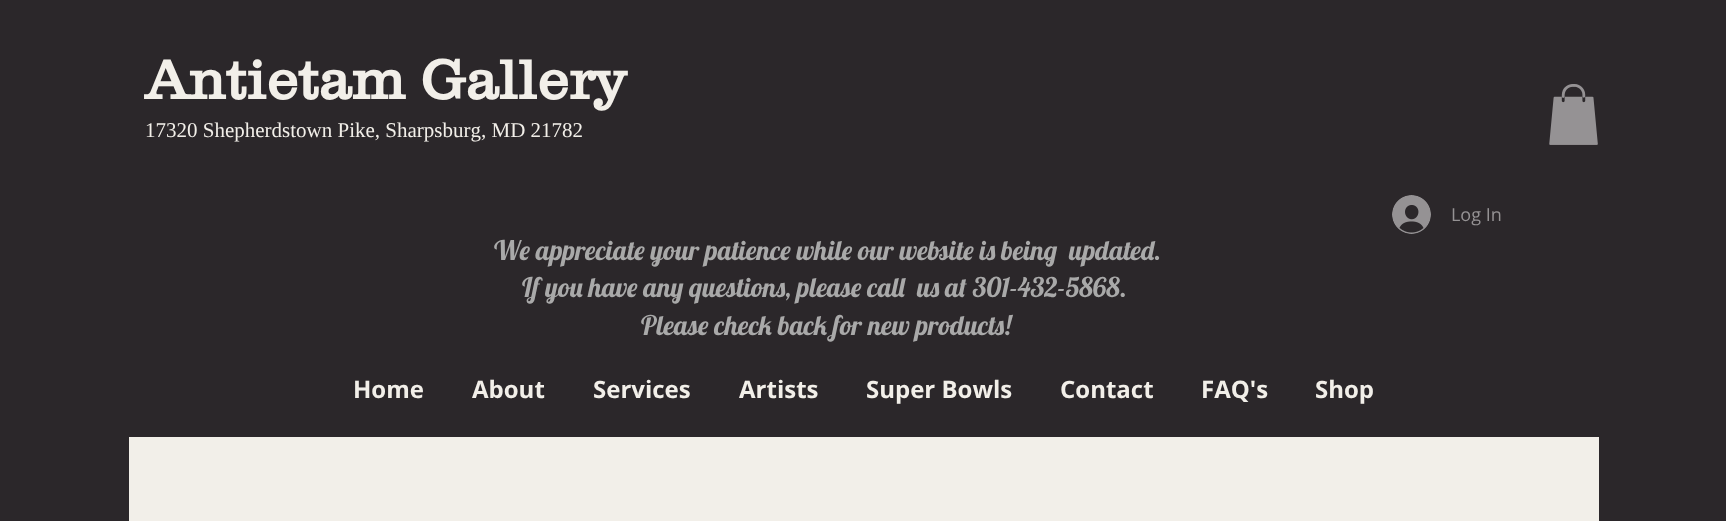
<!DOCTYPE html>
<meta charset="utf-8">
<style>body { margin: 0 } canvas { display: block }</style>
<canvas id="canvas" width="1726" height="521"></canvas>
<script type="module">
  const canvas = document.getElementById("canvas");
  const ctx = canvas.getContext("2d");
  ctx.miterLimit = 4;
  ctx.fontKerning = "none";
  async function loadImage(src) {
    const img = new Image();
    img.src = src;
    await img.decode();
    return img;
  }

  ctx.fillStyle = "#2b272a";
  ctx.fillRect(0, 0, 1726, 521);
  ctx.font = "bold 57px 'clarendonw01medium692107'";
  ctx.fillStyle = "#f2efe9";
  ctx.fillText("Antietam Gallery", 145, 99);
  ctx.font = "21px Liberation Serif";
  ctx.fillText("17320 Shepherdstown Pike, Sharpsburg, MD 21782", 145, 137);
  ctx.drawImage(await loadImage("img1.png"), 1549, 84, 49, 61);
  ctx.drawImage(await loadImage("img2.png"), 1392, 195, 39, 39);
  ctx.font = "18px Open Sans";
  ctx.fillStyle = "#959294";
  ctx.fillText("Log In", 1451, 221);
  ctx.font = "27px Lobster";
  ctx.fillStyle = "#a9a9a9";
  ctx.fillText("We appreciate your patience while our website is being", 494, 260);
  ctx.fillText("updated.", 1069, 260);
  ctx.fillText("If you have any questions, please call", 522, 297);
  ctx.fillText("us at 301-432-5868.", 917, 297);
  ctx.fillText("Please check back for new products!", 641, 335);
  ctx.font = "bold 24px Open Sans";
  ctx.fillStyle = "#f2efe9";
  ctx.fillText("Home", 353, 398);
  ctx.fillText("About", 472, 398);
  ctx.fillText("Services", 593, 398);
  ctx.fillText("Artists", 739, 398);
  ctx.fillText("Super Bowls", 866, 398);
  ctx.fillText("Contact", 1060, 398);
  ctx.fillText("FAQ's", 1201, 398);
  ctx.fillText("Shop", 1315, 398);
  ctx.fillRect(129, 437, 1470, 84);
</script>
